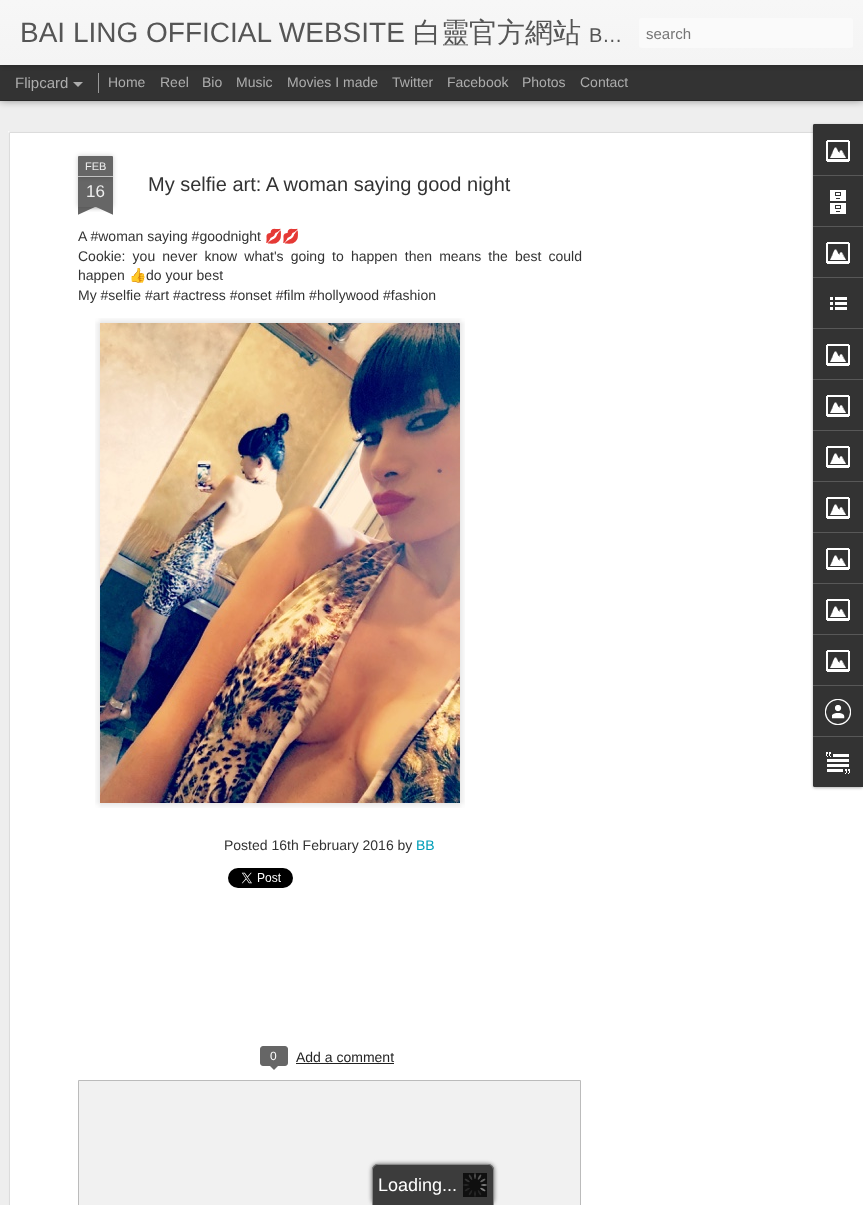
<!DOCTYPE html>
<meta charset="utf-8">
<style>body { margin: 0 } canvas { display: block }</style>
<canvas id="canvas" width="863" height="1205"></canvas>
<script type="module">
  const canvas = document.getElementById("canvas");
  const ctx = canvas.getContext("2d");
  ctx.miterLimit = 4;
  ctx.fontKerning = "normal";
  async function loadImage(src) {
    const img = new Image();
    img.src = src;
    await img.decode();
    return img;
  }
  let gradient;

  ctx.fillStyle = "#333333";
  ctx.fillRect(0, 0, 863, 1205);
  ctx.fillStyle = "#eeeeee";
  ctx.fillRect(0, 101, 863, 1104);
  ctx.fillStyle = "rgba(0, 0, 0, 0.5)";
  ctx.filter = "blur(4px)";
  ctx.beginPath();
  ctx.rect(0, 65, 863, 35);
  ctx.fill();
  ctx.filter = "none";
  ctx.fillStyle = "#333333";
  ctx.fillRect(0, 65, 863, 35);
  ctx.fillStyle = "#999999";
  ctx.fillRect(98, 73, 1, 20);
  ctx.fillStyle = "rgba(0, 0, 0, 0.3)";
  ctx.filter = "blur(2.5px)";
  ctx.beginPath();
  ctx.rect(0, 0, 863, 65);
  ctx.fill();
  ctx.filter = "none";
  gradient = ctx.createLinearGradient(0, 0, 0, 65);
  gradient.addColorStop(0, "#f7f7f7");
  gradient.addColorStop(1, "#f4f4f4");
  ctx.fillStyle = gradient;
  ctx.fillRect(0, 0, 863, 65);
  ctx.font = "28px Liberation Sans";
  ctx.fillStyle = "#555555";
  ctx.fillText("BAI LING OFFICIAL WEBSITE", 20, 42);
  ctx.font = "500 28px WenQuanYi Zen Hei";
  ctx.fillText("白靈官方網站", 413, 42);
  ctx.font = "20px Liberation Sans";
  ctx.fillText("B…", 589, 42);
  ctx.fillStyle = "#fafafa";
  ctx.beginPath();
  ctx.roundRect(639, 18, 214, 30, 3);
  ctx.fill();
  ctx.font = "15px Liberation Sans";
  ctx.fillStyle = "#757575";
  ctx.fillText("search", 646, 39);
  ctx.fillStyle = "#adadad";
  ctx.fillText("Flipcard", 15, 88);
  ctx.beginPath();
  ctx.moveTo(73, 82);
  ctx.lineTo(83, 82);
  ctx.lineTo(78, 87);
  ctx.closePath();
  ctx.fill();
  ctx.font = "14px Liberation Sans";
  ctx.fillText("Home", 108, 87);
  ctx.fillText("Reel", 160, 87);
  ctx.fillText("Bio", 202, 87);
  ctx.fillText("Music", 236, 87);
  ctx.fillText("Movies I made", 287, 87);
  ctx.fillText("Twitter", 392, 87);
  ctx.fillText("Facebook", 447, 87);
  ctx.fillText("Photos", 522, 87);
  ctx.fillText("Contact", 580, 87);
  ctx.fillStyle = "#ffffff";
  ctx.fillRect(8, 131, 855, 1074);
  ctx.drawImage(await loadImage("img1.png"), 8, 131, 805, 1074);
  ctx.fillStyle = "rgba(0, 0, 0, 0.2)";
  ctx.filter = "blur(2.5px)";
  ctx.beginPath();
  ctx.rect(78, 177, 35, 30);
  ctx.fill();
  ctx.filter = "none";
  ctx.fillStyle = "#666666";
  ctx.fillRect(78, 177, 35, 30);
  ctx.fillStyle = "rgba(0, 0, 0, 0.2)";
  ctx.filter = "blur(2.5px)";
  ctx.beginPath();
  ctx.roundRect(78, 156, 35, 21, 1);
  ctx.fill();
  ctx.filter = "none";
  ctx.fillStyle = "#666666";
  ctx.beginPath();
  ctx.roundRect(78, 156, 35, 21, [1, 1, 0, 0]);
  ctx.fill();
  ctx.fillStyle = "#c2c2c2";
  ctx.fillRect(78, 176, 35, 1);
  ctx.font = "11px Liberation Sans";
  ctx.fillStyle = "#eeeeee";
  ctx.fillText("FEB", 85, 170);
  ctx.font = "17px Liberation Sans";
  ctx.fillText("16", 86, 197);
  ctx.save();
  ctx.beginPath();
  ctx.rect(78, 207, 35, 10);
  ctx.clip();
  ctx.fillStyle = "rgba(0, 0, 0, 0.2)";
  ctx.filter = "blur(2.5px)";
  ctx.beginPath();
  ctx.rect(69, 197, 50, 10);
  ctx.fill();
  ctx.filter = "none";
  ctx.restore();
  ctx.save();
  ctx.beginPath();
  ctx.rect(78, 207, 35, 10);
  ctx.clip();
  ctx.fillStyle = "#666666";
  ctx.beginPath();
  ctx.moveTo(69, 208);
  ctx.lineTo(115, 187);
  ctx.lineTo(119, 196);
  ctx.lineTo(73, 217);
  ctx.closePath();
  ctx.fill();
  ctx.restore();
  ctx.save();
  ctx.beginPath();
  ctx.rect(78, 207, 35, 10);
  ctx.clip();
  ctx.fillStyle = "rgba(0, 0, 0, 0.2)";
  ctx.filter = "blur(2.5px)";
  ctx.beginPath();
  ctx.rect(72, 197, 50, 10);
  ctx.fill();
  ctx.filter = "none";
  ctx.restore();
  ctx.save();
  ctx.beginPath();
  ctx.rect(78, 207, 35, 10);
  ctx.clip();
  ctx.fillStyle = "#666666";
  ctx.beginPath();
  ctx.moveTo(76, 187);
  ctx.lineTo(122, 208);
  ctx.lineTo(118, 217);
  ctx.lineTo(72, 196);
  ctx.closePath();
  ctx.fill();
  ctx.restore();
  ctx.font = "20px Liberation Sans";
  ctx.fillStyle = "#333333";
  ctx.fillText("My selfie art: A woman saying good night", 148, 191);
  ctx.font = "14px Liberation Sans";
  ctx.fillText("A #woman saying #goodnight", 78, 241);
  ctx.font = "14px Noto Color Emoji";
  ctx.fillText("💋💋", 265, 241);
  ctx.wordSpacing = "3.25px";
  ctx.font = "14px Liberation Sans";
  ctx.fillText("Cookie: you never know what's going to happen then means the best could", 78, 261);
  ctx.wordSpacing = "0px";
  ctx.fillText("happen", 78, 280);
  ctx.font = "14px Noto Color Emoji";
  ctx.fillText("👍", 129, 280);
  ctx.font = "14px Liberation Sans";
  ctx.fillText("do your best", 146, 280);
  ctx.fillText("My #selfie #art #actress #onset #film #hollywood #fashion", 78, 300);
  ctx.drawImage(await loadImage("img2.png"), 95, 318, 370, 490);
  ctx.fillText("Posted 16th February 2016 by", 224, 850);
  ctx.fillStyle = "#009eb8";
  ctx.fillText("BB", 416, 850);
  ctx.drawImage(await loadImage("img3.png"), 228, 868, 65, 20);
  ctx.fillStyle = "#666666";
  ctx.beginPath();
  ctx.roundRect(260.5, 1046.5, 27, 19, 2.5);
  ctx.fill();
  ctx.strokeStyle = "#666666";
  ctx.stroke();
  ctx.font = "12px Liberation Sans";
  ctx.fillStyle = "#ffffff";
  ctx.fillText("0", 270, 1060);
  ctx.fillStyle = "#666666";
  ctx.beginPath();
  ctx.moveTo(269, 1065);
  ctx.lineTo(279, 1065);
  ctx.lineTo(274, 1070);
  ctx.closePath();
  ctx.fill();
  ctx.font = "14px Liberation Sans";
  ctx.fillStyle = "#222222";
  ctx.fillText("Add a comment", 296, 1062);
  ctx.fillRect(296, 1063, 98, 1);
  ctx.fillStyle = "#f1f1f1";
  ctx.beginPath();
  ctx.rect(78.5, 1080.5, 502, 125);
  ctx.fill();
  ctx.strokeStyle = "#bbbbbb";
  ctx.stroke();
  ctx.fillStyle = "rgba(0, 0, 0, 0.3)";
  ctx.filter = "blur(1.5px)";
  ctx.beginPath();
  ctx.roundRect(813, 125, 50, 663, 2);
  ctx.fill();
  ctx.filter = "none";
  ctx.fillStyle = "#333333";
  ctx.beginPath();
  ctx.roundRect(813, 124, 50, 663, [2, 0, 0, 2]);
  ctx.fill();
  ctx.beginPath();
  ctx.roundRect(813, 124, 50, 51, [2, 0, 0, 0]);
  ctx.fill();
  ctx.drawImage(await loadImage("img4.png"), 826, 140, 24, 22);
  ctx.fillStyle = "#585858";
  ctx.fillRect(813, 175, 50, 1);
  ctx.drawImage(await loadImage("img5.png"), 830, 190, 16, 24);
  ctx.fillRect(813, 226, 50, 1);
  ctx.drawImage(await loadImage("img4.png"), 826, 242, 24, 22);
  ctx.fillRect(813, 277, 50, 1);
  ctx.drawImage(await loadImage("img6.png"), 830, 297, 17, 13);
  ctx.fillRect(813, 328, 50, 1);
  ctx.drawImage(await loadImage("img4.png"), 826, 344, 24, 22);
  ctx.fillRect(813, 379, 50, 1);
  ctx.drawImage(await loadImage("img4.png"), 826, 395, 24, 22);
  ctx.fillRect(813, 430, 50, 1);
  ctx.drawImage(await loadImage("img4.png"), 826, 446, 24, 22);
  ctx.fillRect(813, 481, 50, 1);
  ctx.drawImage(await loadImage("img4.png"), 826, 497, 24, 22);
  ctx.fillRect(813, 532, 50, 1);
  ctx.drawImage(await loadImage("img4.png"), 826, 548, 24, 22);
  ctx.fillRect(813, 583, 50, 1);
  ctx.drawImage(await loadImage("img4.png"), 826, 599, 24, 22);
  ctx.fillRect(813, 634, 50, 1);
  ctx.drawImage(await loadImage("img4.png"), 826, 650, 24, 22);
  ctx.fillRect(813, 685, 50, 1);
  ctx.drawImage(await loadImage("img7.png"), 825, 699, 26, 26);
  ctx.fillStyle = "#333333";
  ctx.beginPath();
  ctx.roundRect(813, 736, 50, 51, [0, 0, 0, 2]);
  ctx.fill();
  ctx.fillStyle = "#585858";
  ctx.fillRect(813, 736, 50, 1);
  ctx.drawImage(await loadImage("img8.png"), 826, 752, 24, 22);
  ctx.fillStyle = "#636363";
  ctx.filter = "blur(2px)";
  ctx.beginPath();
  ctx.roundRect(372, 1164, 122, 41, 6);
  ctx.fill();
  ctx.filter = "none";
  ctx.fillStyle = "#3c3c3c";
  ctx.beginPath();
  ctx.roundRect(372, 1164, 122, 41, [6, 6, 0, 0]);
  ctx.fill();
  ctx.fillStyle = "#898989";
  ctx.beginPath();
  ctx.moveTo(378, 1164);
  ctx.lineTo(488, 1164);
  ctx.bezierCurveTo(491, 1164, 494, 1167, 494, 1170);
  ctx.lineTo(494, 1205);
  ctx.lineTo(372, 1205);
  ctx.lineTo(372, 1170);
  ctx.bezierCurveTo(372, 1167, 375, 1164, 378, 1164);
  ctx.closePath();
  ctx.moveTo(378, 1165);
  ctx.lineTo(488, 1165);
  ctx.bezierCurveTo(491, 1165, 493, 1167, 493, 1170);
  ctx.lineTo(493, 1205);
  ctx.lineTo(373, 1205);
  ctx.lineTo(373, 1170);
  ctx.bezierCurveTo(373, 1167, 375, 1165, 378, 1165);
  ctx.closePath();
  ctx.fill("evenodd");
  ctx.drawImage(await loadImage("img9.png"), 463, 1173, 24, 24);
  ctx.font = "18px Liberation Sans";
  ctx.fillStyle = "#ffffff";
  ctx.fillText("Loading...", 378, 1191);
</script>
